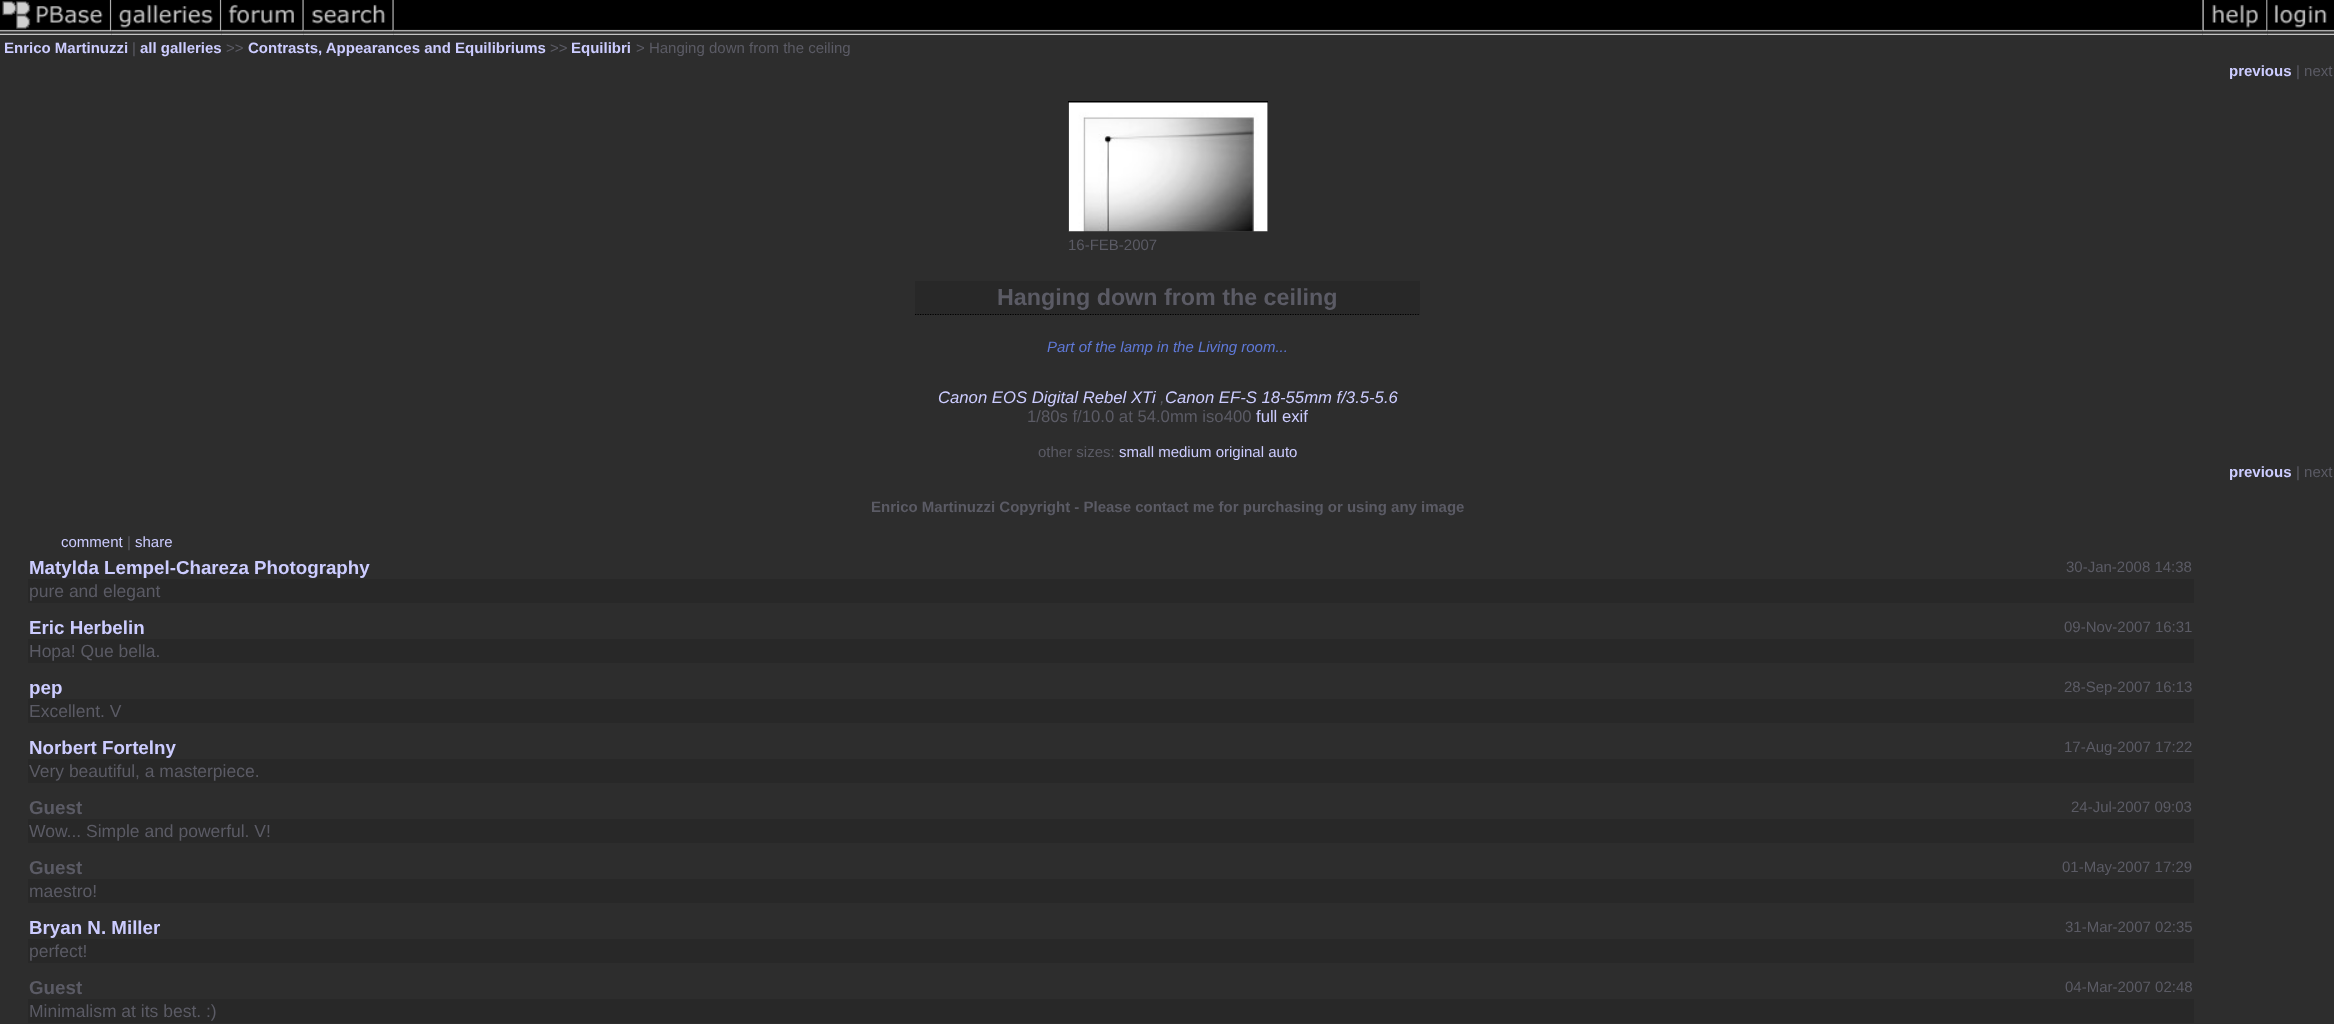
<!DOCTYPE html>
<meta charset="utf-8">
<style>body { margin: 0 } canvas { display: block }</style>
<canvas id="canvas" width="2334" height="1024"></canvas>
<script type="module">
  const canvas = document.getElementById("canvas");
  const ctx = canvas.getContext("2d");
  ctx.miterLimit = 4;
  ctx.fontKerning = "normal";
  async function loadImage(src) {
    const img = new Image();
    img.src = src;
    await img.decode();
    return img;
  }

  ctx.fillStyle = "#2d2d2d";
  ctx.fillRect(0, 0, 2334, 1024);
  ctx.drawImage(await loadImage("img1.png"), 0, 0, 112, 35);
  ctx.drawImage(await loadImage("img2.png"), 111, 0, 111, 35);
  ctx.drawImage(await loadImage("img3.png"), 221, 0, 83, 35);
  ctx.drawImage(await loadImage("img4.png"), 303, 0, 91, 35);
  ctx.drawImage(await loadImage("img5.png"), 393, 0, 1810, 35);
  ctx.drawImage(await loadImage("img6.png"), 2202, 0, 66, 35);
  ctx.drawImage(await loadImage("img7.png"), 2267, 0, 67, 35);
  ctx.font = "bold 15px Liberation Sans";
  ctx.fillStyle = "#ccccff";
  ctx.fillText("Enrico Martinuzzi", 4, 53);
  ctx.font = "15px Liberation Sans";
  ctx.fillStyle = "#5b5b65";
  ctx.fillText("|", 132, 53);
  ctx.font = "bold 15px Liberation Sans";
  ctx.fillStyle = "#ccccff";
  ctx.fillText("all galleries", 140, 53);
  ctx.font = "15px Liberation Sans";
  ctx.fillStyle = "#5b5b65";
  ctx.fillText(">>", 226, 53);
  ctx.font = "bold 15px Liberation Sans";
  ctx.fillStyle = "#ccccff";
  ctx.fillText("Contrasts, Appearances and Equilibriums", 248, 53);
  ctx.font = "15px Liberation Sans";
  ctx.fillStyle = "#5b5b65";
  ctx.fillText(">>", 550, 53);
  ctx.font = "bold 15px Liberation Sans";
  ctx.fillStyle = "#ccccff";
  ctx.fillText("Equilibri", 571, 53);
  ctx.font = "15px Liberation Sans";
  ctx.fillStyle = "#5b5b65";
  ctx.fillText("> Hanging down from the ceiling", 636, 53);
  ctx.font = "bold 15px Liberation Sans";
  ctx.fillStyle = "#ccccff";
  ctx.fillText("previous", 2229, 76);
  ctx.font = "15px Liberation Sans";
  ctx.fillStyle = "#5b5b65";
  ctx.fillText("| next", 2296, 76);
  ctx.fillStyle = "#000000";
  ctx.fillRect(1068, 101, 200, 130);
  ctx.drawImage(await loadImage("img8.png"), 1068, 102, 200, 130);
  ctx.fillStyle = "#5b5b65";
  ctx.fillText("16-FEB-2007", 1068, 250);
  ctx.fillStyle = "#282828";
  ctx.fillRect(915, 281, 505, 34);
  ctx.beginPath();
  ctx.moveTo(915, 314.5);
  ctx.lineTo(1420, 314.5);
  ctx.strokeStyle = "#000000";
  ctx.lineWidth = 1.2;
  ctx.setLineDash([1.25, 1.25]);
  ctx.stroke();
  ctx.font = "bold 23.3px Liberation Sans";
  ctx.fillStyle = "#5b5b65";
  ctx.fillText("Hanging down from the ceiling", 997, 305);
  ctx.font = "italic 15px Liberation Sans";
  ctx.fillStyle = "#5f79d8";
  ctx.fillText("Part of the lamp in the Living room...", 1047, 352);
  ctx.font = "italic 16.7px Liberation Sans";
  ctx.fillStyle = "#ccccff";
  ctx.fillText("Canon EOS Digital Rebel XTi", 938, 403);
  ctx.fillStyle = "#5b5b65";
  ctx.fillText(",", 1160, 403);
  ctx.fillStyle = "#ccccff";
  ctx.fillText("Canon EF-S 18-55mm f/3.5-5.6", 1165, 403);
  ctx.font = "16.7px Liberation Sans";
  ctx.fillStyle = "#5b5b65";
  ctx.fillText("1/80s f/10.0 at 54.0mm iso400", 1027, 422);
  ctx.fillStyle = "#ccccff";
  ctx.fillText("full exif", 1256, 422);
  ctx.font = "15px Liberation Sans";
  ctx.fillStyle = "#5b5b65";
  ctx.fillText("other sizes:", 1038, 457);
  ctx.fillStyle = "#ccccff";
  ctx.fillText("small medium original auto", 1119, 457);
  ctx.font = "bold 15px Liberation Sans";
  ctx.fillText("previous", 2229, 477);
  ctx.font = "15px Liberation Sans";
  ctx.fillStyle = "#5b5b65";
  ctx.fillText("| next", 2296, 477);
  ctx.font = "bold 15px Liberation Sans";
  ctx.fillText("Enrico Martinuzzi Copyright - Please contact me for purchasing or using any image", 871, 512);
  ctx.font = "15px Liberation Sans";
  ctx.fillStyle = "#ccccff";
  ctx.fillText("comment", 61, 547);
  ctx.fillStyle = "#5b5b65";
  ctx.fillText("|", 127, 547);
  ctx.fillStyle = "#ccccff";
  ctx.fillText("share", 135, 547);
  ctx.font = "bold 18.75px Liberation Sans";
  ctx.fillText("Matylda Lempel-Chareza Photography", 29, 574);
  ctx.font = "15px Liberation Sans";
  ctx.fillStyle = "#5b5b65";
  ctx.fillText("30-Jan-2008 14:38", 2066, 572);
  ctx.fillStyle = "#282828";
  ctx.fillRect(28, 579, 2166, 24);
  ctx.font = "17.5px Liberation Sans";
  ctx.fillStyle = "#5b5b65";
  ctx.fillText("pure and elegant", 29, 597);
  ctx.font = "bold 18.75px Liberation Sans";
  ctx.fillStyle = "#ccccff";
  ctx.fillText("Eric Herbelin", 29, 634);
  ctx.font = "15px Liberation Sans";
  ctx.fillStyle = "#5b5b65";
  ctx.fillText("09-Nov-2007 16:31", 2064, 632);
  ctx.fillStyle = "#282828";
  ctx.fillRect(28, 639, 2166, 24);
  ctx.font = "17.5px Liberation Sans";
  ctx.fillStyle = "#5b5b65";
  ctx.fillText("Hopa! Que bella.", 29, 657);
  ctx.font = "bold 18.75px Liberation Sans";
  ctx.fillStyle = "#ccccff";
  ctx.fillText("pep", 29, 694);
  ctx.font = "15px Liberation Sans";
  ctx.fillStyle = "#5b5b65";
  ctx.fillText("28-Sep-2007 16:13", 2064, 692);
  ctx.fillStyle = "#282828";
  ctx.fillRect(28, 699, 2166, 24);
  ctx.font = "17.5px Liberation Sans";
  ctx.fillStyle = "#5b5b65";
  ctx.fillText("Excellent. V", 29, 717);
  ctx.font = "bold 18.75px Liberation Sans";
  ctx.fillStyle = "#ccccff";
  ctx.fillText("Norbert Fortelny", 29, 754);
  ctx.font = "15px Liberation Sans";
  ctx.fillStyle = "#5b5b65";
  ctx.fillText("17-Aug-2007 17:22", 2064, 752);
  ctx.fillStyle = "#282828";
  ctx.fillRect(28, 759, 2166, 24);
  ctx.font = "17.5px Liberation Sans";
  ctx.fillStyle = "#5b5b65";
  ctx.fillText("Very beautiful, a masterpiece.", 29, 777);
  ctx.font = "bold 18.75px Liberation Sans";
  ctx.fillText("Guest", 29, 814);
  ctx.font = "15px Liberation Sans";
  ctx.fillText("24-Jul-2007 09:03", 2071, 812);
  ctx.fillStyle = "#282828";
  ctx.fillRect(28, 819, 2166, 24);
  ctx.font = "17.5px Liberation Sans";
  ctx.fillStyle = "#5b5b65";
  ctx.fillText("Wow... Simple and powerful. V!", 29, 837);
  ctx.font = "bold 18.75px Liberation Sans";
  ctx.fillText("Guest", 29, 874);
  ctx.font = "15px Liberation Sans";
  ctx.fillText("01-May-2007 17:29", 2062, 872);
  ctx.fillStyle = "#282828";
  ctx.fillRect(28, 879, 2166, 24);
  ctx.font = "17.5px Liberation Sans";
  ctx.fillStyle = "#5b5b65";
  ctx.fillText("maestro!", 29, 897);
  ctx.font = "bold 18.75px Liberation Sans";
  ctx.fillStyle = "#ccccff";
  ctx.fillText("Bryan N. Miller", 29, 934);
  ctx.font = "15px Liberation Sans";
  ctx.fillStyle = "#5b5b65";
  ctx.fillText("31-Mar-2007 02:35", 2065, 932);
  ctx.fillStyle = "#282828";
  ctx.fillRect(28, 939, 2166, 24);
  ctx.font = "17.5px Liberation Sans";
  ctx.fillStyle = "#5b5b65";
  ctx.fillText("perfect!", 29, 957);
  ctx.font = "bold 18.75px Liberation Sans";
  ctx.fillText("Guest", 29, 994);
  ctx.font = "15px Liberation Sans";
  ctx.fillText("04-Mar-2007 02:48", 2065, 992);
  ctx.fillStyle = "#282828";
  ctx.fillRect(28, 999, 2166, 24);
  ctx.font = "17.5px Liberation Sans";
  ctx.fillStyle = "#5b5b65";
  ctx.fillText("Minimalism at its best. :)", 29, 1017);
</script>
